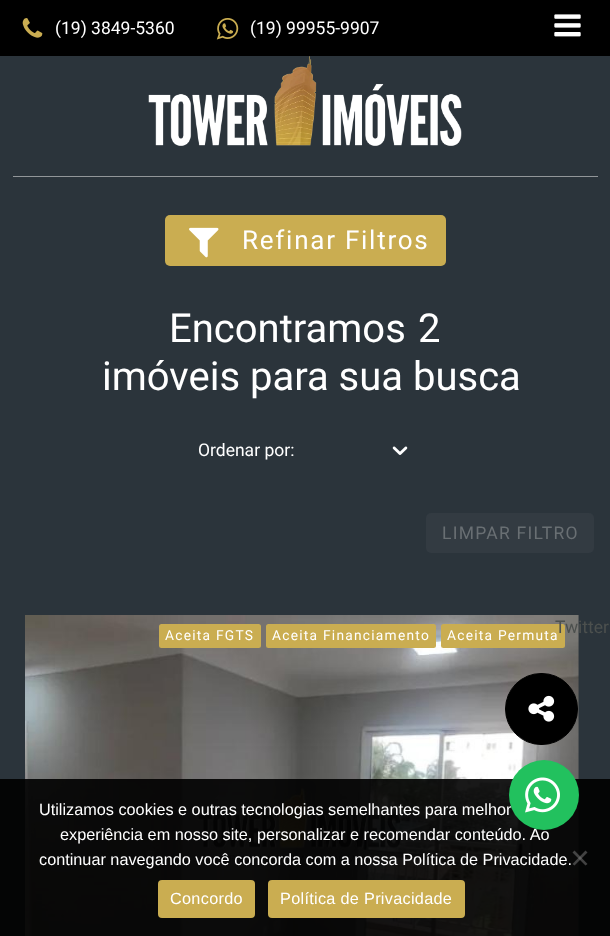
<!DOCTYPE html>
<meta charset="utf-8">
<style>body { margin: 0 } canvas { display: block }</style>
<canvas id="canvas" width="610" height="936"></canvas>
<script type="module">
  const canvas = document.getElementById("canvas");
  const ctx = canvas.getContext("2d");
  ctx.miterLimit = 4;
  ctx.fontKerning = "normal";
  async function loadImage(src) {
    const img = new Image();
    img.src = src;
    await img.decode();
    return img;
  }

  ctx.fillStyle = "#2b343b";
  ctx.fillRect(0, 0, 610, 936);
  ctx.fillStyle = "#000000";
  ctx.fillRect(0, 0, 610, 56);
  ctx.drawImage(await loadImage("img1.png"), 22, 18, 21, 20);
  ctx.font = "17.5px Roboto";
  ctx.fillStyle = "#ffffff";
  ctx.fillText("(19) 3849-5360", 55, 34);
  ctx.drawImage(await loadImage("img2.png"), 216, 18, 23, 22);
  ctx.fillText("(19) 99955-9907", 250, 34);
  ctx.drawImage(await loadImage("img3.png"), 554, 14, 27, 23);
  ctx.drawImage(await loadImage("img4.png"), 148, 56, 314, 90);
  ctx.fillStyle = "#929699";
  ctx.fillRect(13, 176, 585, 1);
  ctx.fillStyle = "#caad51";
  ctx.beginPath();
  ctx.roundRect(165, 215, 281, 51, 5);
  ctx.fill();
  ctx.drawImage(await loadImage("img5.png"), 189, 227, 30, 31);
  ctx.letterSpacing = "1.75px";
  ctx.font = "26px Roboto";
  ctx.fillStyle = "#ffffff";
  ctx.fillText("Refinar Filtros", 242, 249);
  ctx.letterSpacing = "0px";
  ctx.font = "40px Roboto";
  ctx.fillText("Encontramos", 169, 342);
  ctx.fillText("2", 418, 342);
  ctx.fillText("imóveis para sua busca", 102, 390);
  ctx.font = "17.5px Roboto";
  ctx.fillText("Ordenar por:", 198, 456);
  ctx.drawImage(await loadImage("img6.png"), 392, 446, 16, 9);
  ctx.fillStyle = "#333b42";
  ctx.beginPath();
  ctx.roundRect(426, 513, 168, 40, 5);
  ctx.fill();
  ctx.letterSpacing = "1.25px";
  ctx.fillStyle = "#696f73";
  ctx.fillText("LIMPAR FILTRO", 442, 539);
  ctx.drawImage(await loadImage("img7.png"), 25, 615, 554, 321);
  ctx.fillStyle = "#caad51";
  ctx.beginPath();
  ctx.roundRect(159, 624, 102, 24, 2.5);
  ctx.fill();
  ctx.font = "13.75px Roboto";
  ctx.fillStyle = "#ffffff";
  ctx.fillText("Aceita FGTS", 165, 640);
  ctx.fillStyle = "#caad51";
  ctx.beginPath();
  ctx.roundRect(266, 624, 170, 24, 2.5);
  ctx.fill();
  ctx.fillStyle = "#ffffff";
  ctx.fillText("Aceita Financiamento", 272, 640);
  ctx.fillStyle = "#caad51";
  ctx.beginPath();
  ctx.roundRect(441, 624, 124, 24, 2.5);
  ctx.fill();
  ctx.fillStyle = "#ffffff";
  ctx.fillText("Aceita Permuta", 447, 640);
  ctx.letterSpacing = "0px";
  ctx.font = "17.5px Roboto";
  ctx.fillStyle = "#4c504e";
  ctx.fillText("Twitter", 555, 633);
  ctx.fillStyle = "#000000";
  ctx.beginPath();
  ctx.roundRect(505.5, 673.5, 72, 71, 35.5);
  ctx.fill();
  ctx.strokeStyle = "#000000";
  ctx.stroke();
  ctx.drawImage(await loadImage("img8.png"), 528, 695, 27, 27);
  ctx.fillStyle = "rgba(0, 0, 0, 0.9)";
  ctx.fillRect(0, 779, 610, 157);
  ctx.font = "16.25px Liberation Sans";
  ctx.fillStyle = "#ffffff";
  ctx.fillText("Utilizamos cookies e outras tecnologias semelhantes para melhor", 39, 815);
  ctx.fillText("experiência em nosso site, personalizar e recomendar conteúdo. Ao", 60, 840);
  ctx.fillStyle = "#22c15e";
  ctx.beginPath();
  ctx.arc(544, 795, 35, 0, Math.PI * 2);
  ctx.fill();
  ctx.drawImage(await loadImage("img9.png"), 525, 777, 35, 36);
  ctx.fillStyle = "#ffffff";
  ctx.fillText("continuar navegando você concorda com a nossa Política de Privacidade.", 39, 865);
  ctx.fillStyle = "rgba(128, 128, 128, 0.5)";
  ctx.beginPath();
  ctx.moveTo(585.5, 850.5);
  ctx.lineTo(587.5, 852.5);
  ctx.lineTo(574.5, 865.5);
  ctx.lineTo(572.5, 864);
  ctx.closePath();
  ctx.fill();
  ctx.beginPath();
  ctx.moveTo(572.5, 852.5);
  ctx.lineTo(574.5, 850.5);
  ctx.lineTo(587.5, 864);
  ctx.lineTo(585.5, 865.5);
  ctx.closePath();
  ctx.fill();
  ctx.fillStyle = "#caad51";
  ctx.beginPath();
  ctx.roundRect(158, 880, 97, 38, 4);
  ctx.fill();
  ctx.letterSpacing = "0.3px";
  ctx.fillStyle = "#ffffff";
  ctx.fillText("Concordo", 170, 904);
  ctx.fillStyle = "#caad51";
  ctx.beginPath();
  ctx.roundRect(268, 880, 197, 38, 4);
  ctx.fill();
  ctx.fillStyle = "#ffffff";
  ctx.fillText("Política de Privacidade", 280, 904);
</script>
